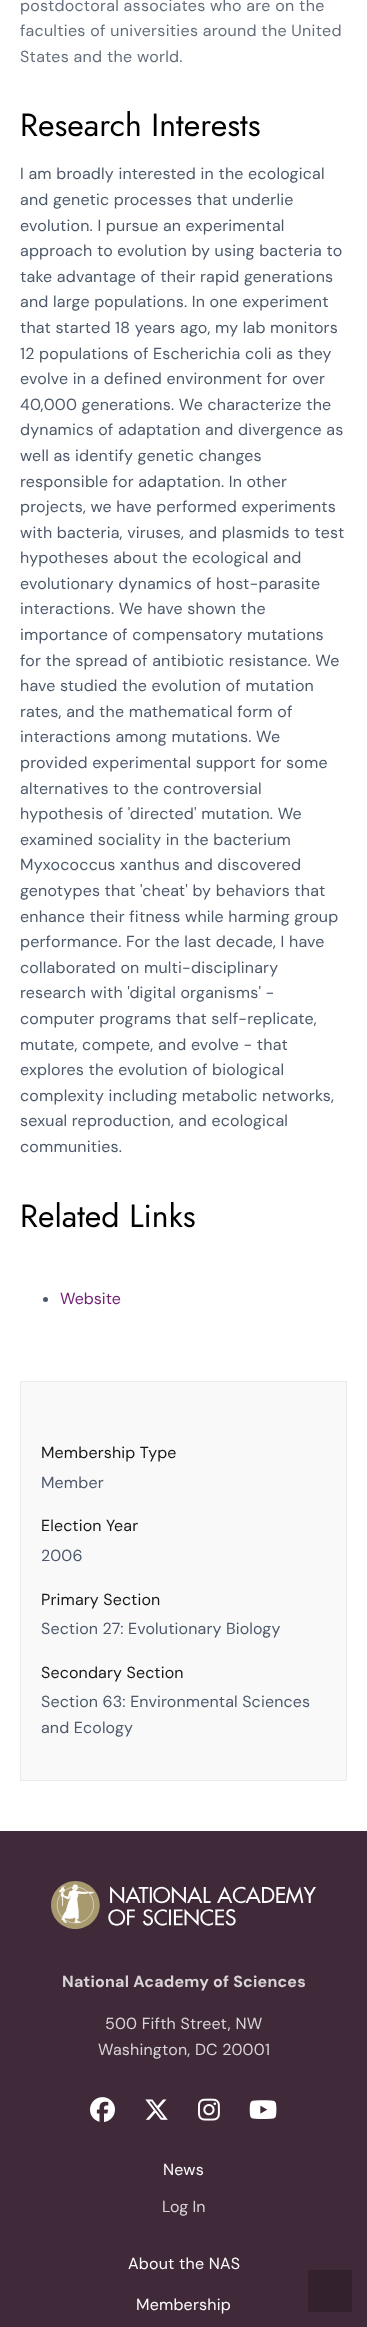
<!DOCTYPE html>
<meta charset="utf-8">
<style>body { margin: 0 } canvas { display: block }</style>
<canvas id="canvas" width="367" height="2327"></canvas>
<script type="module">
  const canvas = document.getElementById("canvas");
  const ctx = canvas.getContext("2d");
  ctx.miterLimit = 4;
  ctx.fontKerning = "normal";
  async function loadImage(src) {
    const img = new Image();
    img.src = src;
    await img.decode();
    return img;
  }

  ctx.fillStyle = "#ffffff";
  ctx.fillRect(0, 0, 367, 2327);
  ctx.letterSpacing = "0.3px";
  ctx.font = "16px DM Sans";
  ctx.fillStyle = "#656f7c";
  ctx.fillText("postdoctoral associates who are on the", 20, 11);
  ctx.fillText("faculties of universities around the United", 20, 36);
  ctx.fillText("States and the world.", 20, 62);
  ctx.letterSpacing = "0px";
  ctx.font = "32px Jost";
  ctx.fillStyle = "#000000";
  ctx.fillText("Research Interests", 20, 136);
  ctx.letterSpacing = "0.2px";
  ctx.font = "16px DM Sans";
  ctx.fillStyle = "#4d596a";
  ctx.fillText("I am broadly interested in the ecological", 20, 179);
  ctx.fillText("and genetic processes that underlie", 20, 205);
  ctx.fillText("evolution. I pursue an experimental", 20, 231);
  ctx.fillText("approach to evolution by using bacteria to", 20, 256);
  ctx.fillText("take advantage of their rapid generations", 20, 282);
  ctx.fillText("and large populations. In one experiment", 20, 307);
  ctx.fillText("that started 18 years ago, my lab monitors", 20, 333);
  ctx.fillText("12 populations of Escherichia coli as they", 20, 359);
  ctx.fillText("evolve in a defined environment for over", 20, 384);
  ctx.fillText("40,000 generations. We characterize the", 20, 410);
  ctx.fillText("dynamics of adaptation and divergence as", 20, 435);
  ctx.fillText("well as identify genetic changes", 20, 461);
  ctx.fillText("responsible for adaptation. In other", 20, 487);
  ctx.fillText("projects, we have performed experiments", 20, 512);
  ctx.fillText("with bacteria, viruses, and plasmids to test", 20, 538);
  ctx.fillText("hypotheses about the ecological and", 20, 563);
  ctx.fillText("evolutionary dynamics of host-parasite", 20, 589);
  ctx.fillText("interactions. We have shown the", 20, 614);
  ctx.fillText("importance of compensatory mutations", 20, 640);
  ctx.fillText("for the spread of antibiotic resistance. We", 20, 666);
  ctx.fillText("have studied the evolution of mutation", 20, 691);
  ctx.fillText("rates, and the mathematical form of", 20, 717);
  ctx.fillText("interactions among mutations. We", 20, 742);
  ctx.fillText("provided experimental support for some", 20, 768);
  ctx.fillText("alternatives to the controversial", 20, 794);
  ctx.fillText("hypothesis of 'directed' mutation. We", 20, 819);
  ctx.fillText("examined sociality in the bacterium", 20, 845);
  ctx.fillText("Myxococcus xanthus and discovered", 20, 870);
  ctx.fillText("genotypes that 'cheat' by behaviors that", 20, 896);
  ctx.fillText("enhance their fitness while harming group", 20, 922);
  ctx.fillText("performance. For the last decade, I have", 20, 947);
  ctx.fillText("collaborated on multi-disciplinary", 20, 973);
  ctx.fillText("research with 'digital organisms' -", 20, 998);
  ctx.fillText("computer programs that self-replicate,", 20, 1024);
  ctx.fillText("mutate, compete, and evolve - that", 20, 1050);
  ctx.fillText("explores the evolution of biological", 20, 1075);
  ctx.fillText("complexity including metabolic networks,", 20, 1101);
  ctx.fillText("sexual reproduction, and ecological", 20, 1126);
  ctx.fillText("communities.", 20, 1152);
  ctx.letterSpacing = "0px";
  ctx.font = "32px Jost";
  ctx.fillStyle = "#000000";
  ctx.fillText("Related Links", 20, 1227);
  ctx.fillStyle = "#4d596a";
  ctx.beginPath();
  ctx.arc(45.5, 1299.5, 2.5, 0, Math.PI * 2);
  ctx.fill();
  ctx.font = "16px DM Sans";
  ctx.fillStyle = "#732375";
  ctx.fillText("Website", 60, 1304);
  ctx.fillStyle = "#f9f9f9";
  ctx.beginPath();
  ctx.rect(20.5, 1381.5, 326, 399);
  ctx.fill();
  ctx.strokeStyle = "#ebebeb";
  ctx.stroke();
  ctx.letterSpacing = "0.15px";
  ctx.fillStyle = "#181818";
  ctx.fillText("Membership Type", 41, 1458);
  ctx.fillStyle = "#4d596a";
  ctx.fillText("Member", 41, 1488);
  ctx.fillStyle = "#181818";
  ctx.fillText("Election Year", 41, 1531);
  ctx.fillStyle = "#4d596a";
  ctx.fillText("2006", 41, 1561);
  ctx.fillStyle = "#181818";
  ctx.fillText("Primary Section", 41, 1605);
  ctx.fillStyle = "#4d596a";
  ctx.fillText("Section 27: Evolutionary Biology", 41, 1634);
  ctx.fillStyle = "#181818";
  ctx.fillText("Secondary Section", 41, 1678);
  ctx.fillStyle = "#4d596a";
  ctx.fillText("Section 63: Environmental Sciences", 41, 1707);
  ctx.fillText("and Ecology", 41, 1733);
  ctx.fillStyle = "#402a39";
  ctx.fillRect(0, 1831, 367, 496);
  ctx.drawImage(await loadImage("img1.png"), 51, 1881, 265, 48);
  ctx.letterSpacing = "0.2px";
  ctx.font = "bold 16px DM Sans";
  ctx.fillStyle = "#d9d4d7";
  ctx.fillText("National Academy of Sciences", 62, 1987);
  ctx.font = "16px DM Sans";
  ctx.fillText("500 Fifth Street, NW", 105, 2029);
  ctx.fillText("Washington, DC 20001", 98, 2055);
  ctx.drawImage(await loadImage("img2.png"), 90, 2097, 25, 25);
  ctx.drawImage(await loadImage("img3.png"), 145, 2099, 23, 21);
  ctx.drawImage(await loadImage("img4.png"), 198, 2098, 22, 23);
  ctx.drawImage(await loadImage("img5.png"), 249, 2100, 28, 19);
  ctx.fillStyle = "#fcfcfc";
  ctx.fillText("News", 163, 2175);
  ctx.letterSpacing = "0px";
  ctx.fillStyle = "#d9d4d7";
  ctx.fillText("Log In", 162, 2212);
  ctx.letterSpacing = "0.2px";
  ctx.fillStyle = "#fcfcfc";
  ctx.fillText("About the NAS", 128, 2269);
  ctx.fillText("Membership", 136, 2310);
  ctx.fillStyle = "#33222e";
  ctx.fillRect(308, 2270, 44, 42);
</script>
